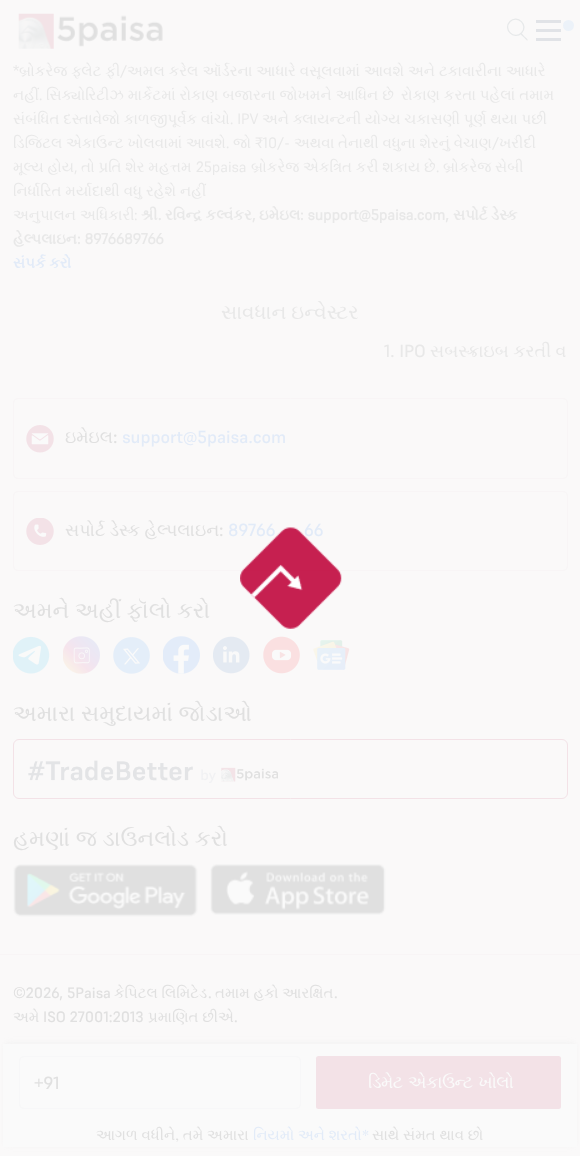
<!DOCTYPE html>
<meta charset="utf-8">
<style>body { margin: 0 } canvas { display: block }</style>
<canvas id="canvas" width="580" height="1156"></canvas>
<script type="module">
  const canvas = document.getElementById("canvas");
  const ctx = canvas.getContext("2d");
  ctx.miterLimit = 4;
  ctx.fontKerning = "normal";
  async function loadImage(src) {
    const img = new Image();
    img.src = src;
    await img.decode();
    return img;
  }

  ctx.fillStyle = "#faf9f9";
  ctx.fillRect(0, 0, 580, 1156);
  ctx.drawImage(await loadImage("img1.png"), 18, 13, 145, 36);
  ctx.fillStyle = "#e7e9ea";
  ctx.beginPath();
  ctx.moveTo(520.5, 33);
  ctx.bezierCurveTo(521.5, 32.5, 524, 36, 524.5, 36.5);
  ctx.bezierCurveTo(525, 37, 528.5, 39.5, 527.5, 40.5);
  ctx.bezierCurveTo(527, 41, 524, 37.5, 523.5, 37);
  ctx.bezierCurveTo(523, 36.5, 519.5, 34, 520.5, 33);
  ctx.closePath();
  ctx.fill();
  ctx.beginPath();
  ctx.moveTo(510, 21.5);
  ctx.bezierCurveTo(517.5, 14, 529, 25.5, 521.5, 33);
  ctx.bezierCurveTo(514, 40.5, 502.5, 29, 510, 21.5);
  ctx.closePath();
  ctx.strokeStyle = "#e7e9ea";
  ctx.lineWidth = 1.3;
  ctx.stroke();
  ctx.fillStyle = "#e1e3e7";
  ctx.fillRect(536, 20, 25, 3);
  ctx.fillStyle = "#ecf2f9";
  ctx.beginPath();
  ctx.arc(568.5, 25.5, 5.5, 0, Math.PI * 2);
  ctx.fill();
  ctx.fillStyle = "#e1e3e7";
  ctx.fillRect(536, 29, 25, 3);
  ctx.fillRect(536, 38, 25, 3);
  ctx.font = "15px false";
  ctx.fillStyle = "#e8e8e8";
  ctx.fillText("*", 13, 76);
  ctx.wordSpacing = "0.25px";
  ctx.font = "15px FreeSerif";
  ctx.fillText("બ્રોકરેજ ફ્લેટ ફી", 19, 76);
  ctx.fillText("અમલ કરેલ ઑર્ડરના આધારે વસૂલવામાં આવશે અને ટકાવારીના આધારે", 127, 76);
  ctx.wordSpacing = "0px";
  ctx.font = "15px false";
  ctx.fillText("/", 120, 76);
  ctx.font = "15px FreeSerif";
  ctx.fillText("નહીં", 13, 100);
  ctx.font = "15px false";
  ctx.fillText(".", 39, 100);
  ctx.wordSpacing = "0.25px";
  ctx.font = "15px FreeSerif";
  ctx.fillText("સિક્યોરિટીઝ માર્કેટમાં રોકાણ બજારના જોખમને આધિન છે", 46, 100);
  ctx.fillText("રોકાણ કરતા પહેલાં તમામ", 401, 100);
  ctx.wordSpacing = "0px";
  ctx.fillText("સંબંધિત દસ્તાવેજો કાળજીપૂર્વક વાંચો", 13, 124);
  ctx.font = "15px false";
  ctx.fillText(". IPV", 230, 124);
  ctx.font = "15px FreeSerif";
  ctx.fillText("અને ક્લાયન્ટની યોગ્ય ચકાસણી પૂર્ણ થયા પછી", 262, 124);
  ctx.fillText("ડિજિટલ એકાઉન્ટ ખોલવામાં આવશે", 13, 148);
  ctx.font = "15px false";
  ctx.fillText(".", 226, 148);
  ctx.font = "15px FreeSerif";
  ctx.fillText("જો", 233, 148);
  ctx.font = "15px false";
  ctx.fillText("₹10/-", 255, 148);
  ctx.font = "15px FreeSerif";
  ctx.fillText("અથવા તેનાથી વધુના શેરનું વેચાણ", 294, 148);
  ctx.font = "15px false";
  ctx.fillText("/", 492, 148);
  ctx.font = "15px FreeSerif";
  ctx.fillText("ખરીદી", 499, 148);
  ctx.fillText("મૂલ્ય હોય", 13, 172);
  ctx.font = "15px false";
  ctx.fillText(",", 74, 172);
  ctx.font = "15px FreeSerif";
  ctx.fillText("તો પ્રતિ શેર મહત્તમ", 81, 172);
  ctx.font = "15px false";
  ctx.fillText("25paisa", 196, 172);
  ctx.font = "15px FreeSerif";
  ctx.fillText("બ્રોકરેજ એકત્રિત કરી શકાય છે", 251, 172);
  ctx.font = "15px false";
  ctx.fillText(".", 436, 172);
  ctx.font = "15px FreeSerif";
  ctx.fillText("બ્રોકરેજ સેબી", 443, 172);
  ctx.wordSpacing = "0.25px";
  ctx.fillText("નિર્ધારિત મર્યાદાથી વધુ રહેશે નહીં", 13, 196);
  ctx.fillText("અનુપાલન અધિકારી", 13, 220);
  ctx.wordSpacing = "0px";
  ctx.font = "15px false";
  ctx.fillText(":", 134, 220);
  ctx.font = "bold 15px FreeSerif";
  ctx.fillText("શ્રી", 141, 220);
  ctx.font = "bold 15px false";
  ctx.fillText(".", 158, 220);
  ctx.font = "bold 15px FreeSerif";
  ctx.fillText("રવિન્દ્ર કલ્વંકર", 165, 220);
  ctx.font = "bold 15px false";
  ctx.fillText(",", 252, 220);
  ctx.font = "bold 15px FreeSerif";
  ctx.fillText("ઇમેઇલ", 259, 220);
  ctx.font = "bold 15px false";
  ctx.fillText(": support@5paisa.com,", 300, 220);
  ctx.font = "bold 15px FreeSerif";
  ctx.fillText("સપોર્ટ ડેસ્ક", 453, 220);
  ctx.fillText("હેલ્પલાઇન", 13, 244);
  ctx.font = "bold 15px false";
  ctx.fillText(": 8976689766", 77, 244);
  ctx.font = "bold 15px FreeSerif";
  ctx.fillStyle = "#e2ebf8";
  ctx.fillText("સંપર્ક કરો", 13, 268);
  ctx.font = "20px FreeSerif";
  ctx.fillStyle = "#e8e8e8";
  ctx.fillText("સાવધાન ઇન્વેસ્ટર", 221, 319);
  ctx.font = "500 17.5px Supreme";
  ctx.fillText("1. IPO", 384, 357);
  ctx.font = "17.5px FreeSerif";
  ctx.fillText("સબસ્ક્રાઇબ કરતી વ", 430, 357);
  ctx.beginPath();
  ctx.roundRect(13.5, 398.5, 554, 80, 4.5);
  ctx.strokeStyle = "#f8f5f6";
  ctx.lineWidth = 1;
  ctx.stroke();
  ctx.drawImage(await loadImage("img2.png"), 26, 425, 28, 28);
  ctx.fillStyle = "#e0e0e0";
  ctx.fillText("ઇમેઇલ", 65, 443);
  ctx.font = "500 17.5px Supreme";
  ctx.fillText(":", 113, 443);
  ctx.fillStyle = "#e2ebf8";
  ctx.fillText("support@5paisa.com", 122, 443);
  ctx.beginPath();
  ctx.roundRect(13.5, 491.5, 554, 79, 4.5);
  ctx.stroke();
  ctx.drawImage(await loadImage("img3.png"), 26, 518, 28, 27);
  ctx.font = "17.5px FreeSerif";
  ctx.fillStyle = "#e0e0e0";
  ctx.fillText("સપોર્ટ ડેસ્ક હેલ્પલાઇન", 65, 536);
  ctx.font = "500 17.5px Supreme";
  ctx.fillText(":", 219, 536);
  ctx.fillStyle = "#e2ebf8";
  ctx.fillText("89766", 228, 536);
  ctx.fillText("66", 304, 536);
  ctx.font = "22.5px FreeSerif";
  ctx.fillStyle = "#e0e0e0";
  ctx.fillText("અમને અહીં ફૉલો કરો", 13, 618);
  ctx.drawImage(await loadImage("img4.png"), 13, 636, 37, 38);
  ctx.drawImage(await loadImage("img5.png"), 63, 636, 37, 38);
  ctx.drawImage(await loadImage("img6.png"), 113, 637, 37, 37);
  ctx.drawImage(await loadImage("img7.png"), 163, 636, 37, 38);
  ctx.drawImage(await loadImage("img8.png"), 213, 636, 37, 38);
  ctx.drawImage(await loadImage("img9.png"), 263, 636, 37, 38);
  ctx.drawImage(await loadImage("img10.png"), 313, 640, 37, 30);
  ctx.fillText("અમારા સમુદાયમાં જોડાઓ", 13, 721);
  ctx.beginPath();
  ctx.roundRect(13.5, 739.5, 554, 59, 5.5);
  ctx.strokeStyle = "#f3e2e7";
  ctx.stroke();
  ctx.drawImage(await loadImage("img11.png"), 28, 760, 250, 23);
  ctx.fillText("હમણાં જ ડાઉનલોડ કરો", 13, 846);
  ctx.drawImage(await loadImage("img12.png"), 13, 864, 185, 53);
  ctx.drawImage(await loadImage("img13.png"), 210, 864, 176, 51);
  ctx.fillStyle = "#f8f5f6";
  ctx.fillRect(0, 954, 580, 1);
  ctx.font = "500 15px Supreme";
  ctx.fillStyle = "#e0e0e0";
  ctx.fillText("©2026, 5Paisa", 13, 998);
  ctx.font = "15px FreeSerif";
  ctx.fillText("કેપિટલ લિમિટેડ", 114, 998);
  ctx.font = "500 15px Supreme";
  ctx.fillText(".", 208, 998);
  ctx.font = "15px FreeSerif";
  ctx.fillText("તમામ હકો આરક્ષિત", 215, 998);
  ctx.font = "500 15px Supreme";
  ctx.fillText(".", 334, 998);
  ctx.font = "15px FreeSerif";
  ctx.fillText("અમે", 13, 1022);
  ctx.font = "500 15px Supreme";
  ctx.fillText("ISO 27001:2013", 43, 1022);
  ctx.font = "15px FreeSerif";
  ctx.fillText("પ્રમાણિત છીએ", 148, 1022);
  ctx.font = "500 15px Supreme";
  ctx.fillText(".", 234, 1022);
  ctx.drawImage(await loadImage("img14.png"), 240, 527, 102, 102);
  ctx.fillStyle = "rgba(229, 229, 229, 0.5)";
  ctx.filter = "blur(3px)";
  ctx.beginPath();
  ctx.rect(6, 1044, 568, 100);
  ctx.fill();
  ctx.filter = "none";
  ctx.fillStyle = "#fafafa";
  ctx.fillRect(3, 1044, 574, 103);
  ctx.beginPath();
  ctx.roundRect(19.5, 1056.5, 281, 52, 4.5);
  ctx.strokeStyle = "#f7f7f8";
  ctx.stroke();
  ctx.font = "500 17.5px Supreme";
  ctx.fillStyle = "#e0e0e0";
  ctx.fillText("+91", 34, 1089);
  ctx.fillStyle = "#f3e2e7";
  ctx.beginPath();
  ctx.roundRect(316, 1056, 245, 53, 2.5);
  ctx.fill();
  ctx.letterSpacing = "-0.6px";
  ctx.wordSpacing = "2px";
  ctx.font = "17.5px FreeSerif";
  ctx.fillStyle = "#fafafa";
  ctx.fillText("ડિમેટ એકાઉન્ટ ખોલો", 368, 1088);
  ctx.letterSpacing = "0px";
  ctx.wordSpacing = "0px";
  ctx.font = "15px FreeSerif";
  ctx.fillStyle = "#e0e0e0";
  ctx.fillText("આગળ વધીને, તમે અમારા", 96, 1140);
  ctx.fillStyle = "#e2ebf8";
  ctx.fillText("નિયમો અને શરતો*", 253, 1140);
  ctx.fillStyle = "#e0e0e0";
  ctx.fillText("સાથે સંમત થાવ છો", 372, 1140);
</script>
